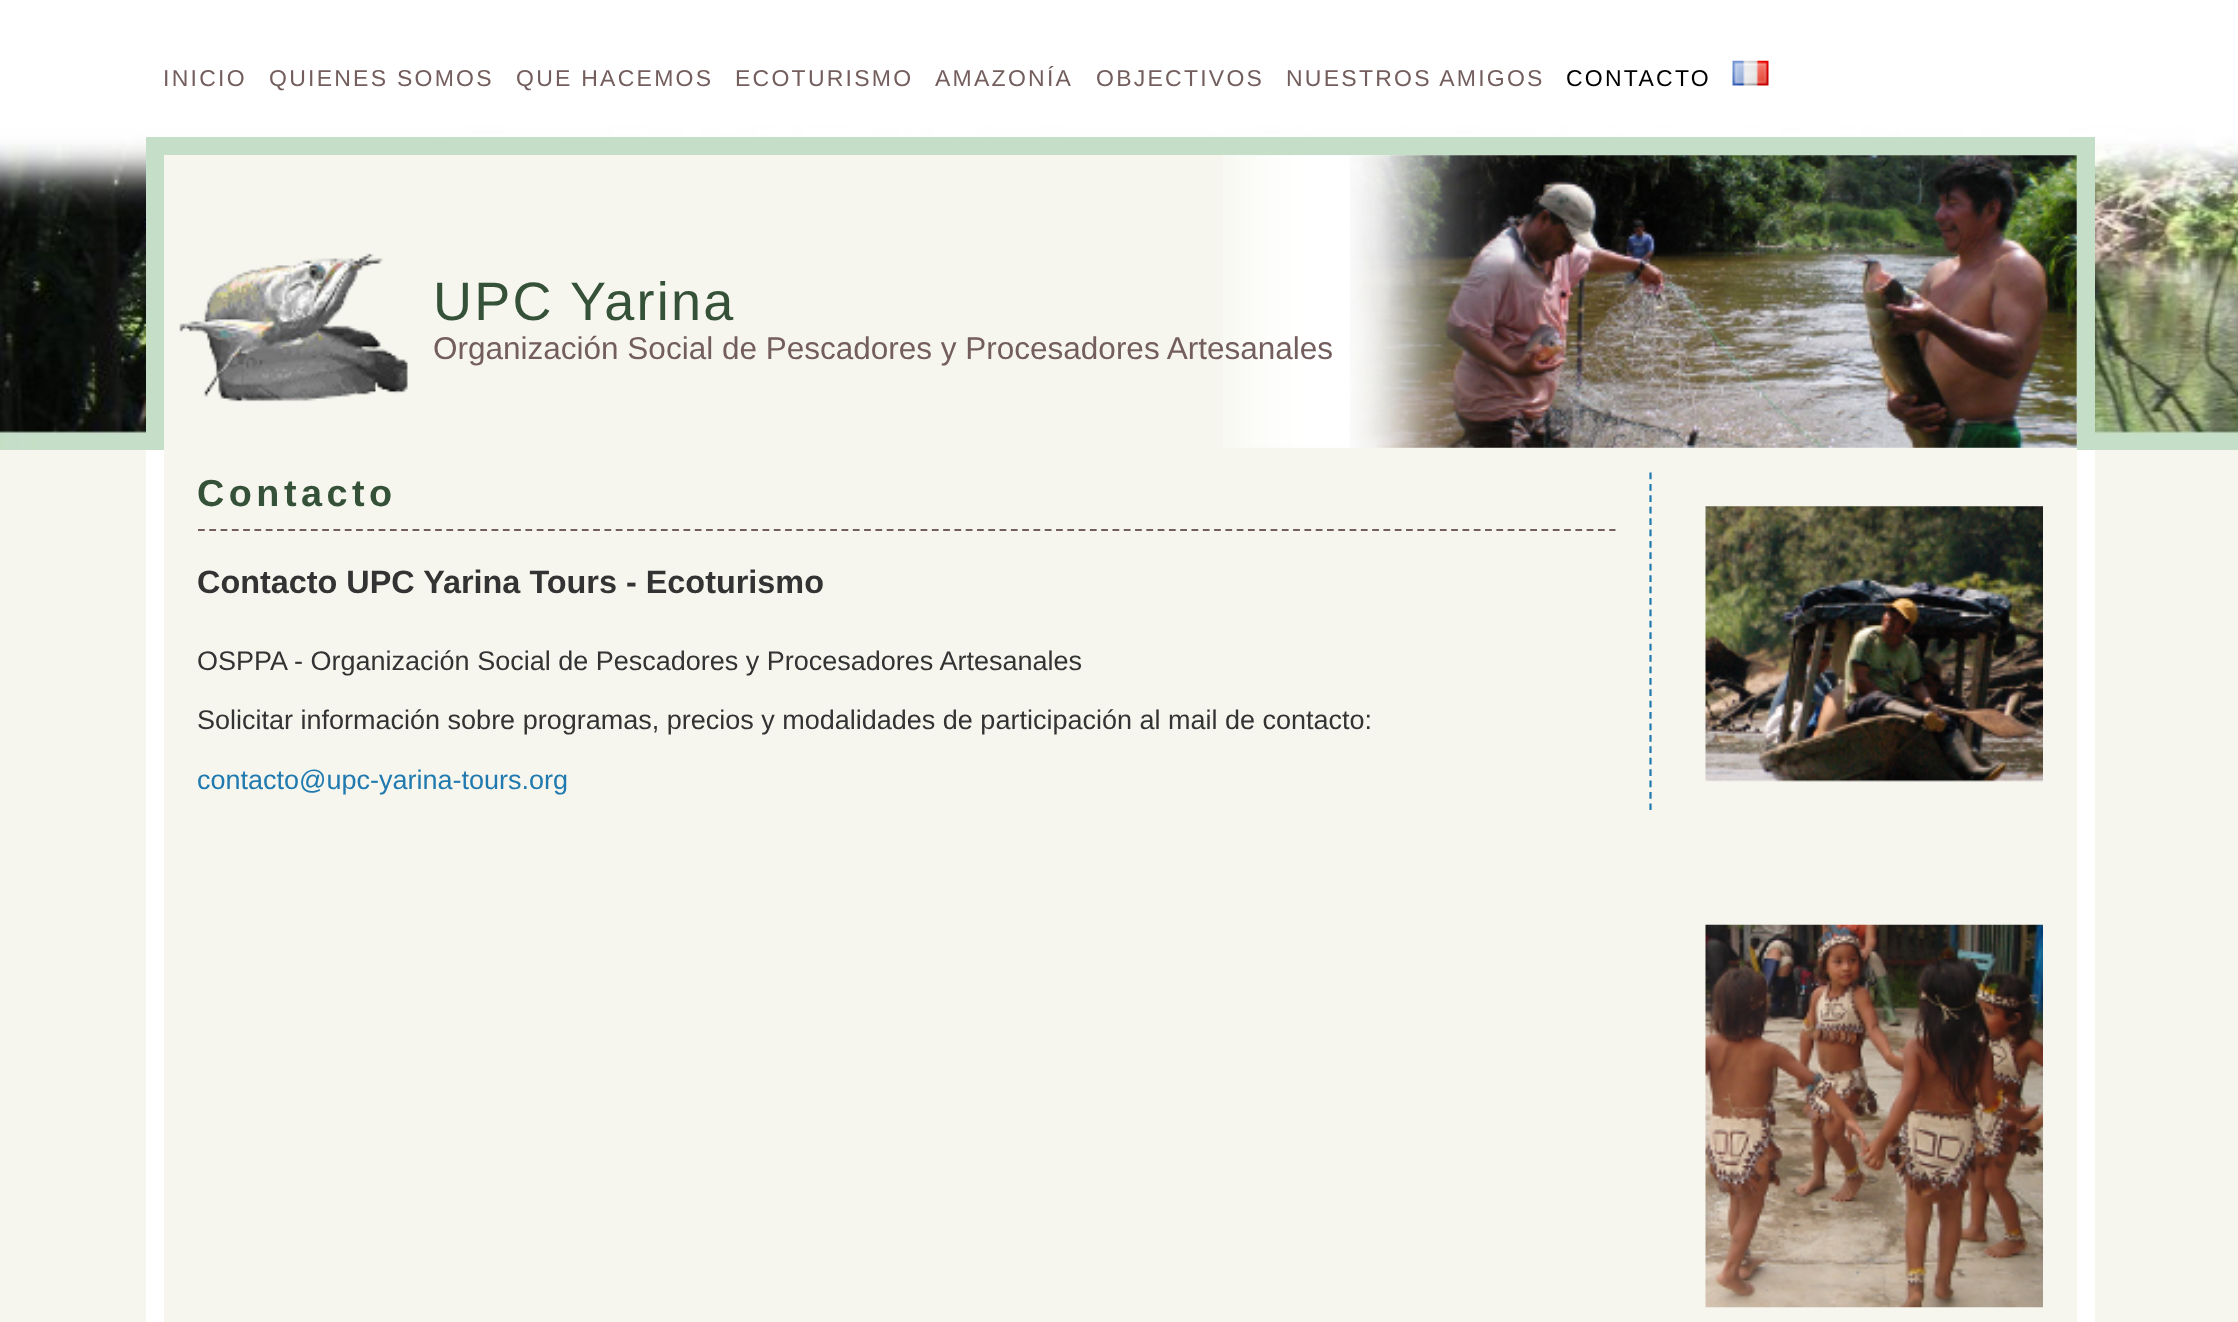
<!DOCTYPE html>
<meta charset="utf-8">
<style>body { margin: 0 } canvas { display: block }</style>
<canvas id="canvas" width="2238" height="1322"></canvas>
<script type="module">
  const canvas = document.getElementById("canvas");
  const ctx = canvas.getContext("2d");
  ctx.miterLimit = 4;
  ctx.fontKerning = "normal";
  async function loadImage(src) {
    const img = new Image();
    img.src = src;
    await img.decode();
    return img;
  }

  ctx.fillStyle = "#f6f6ee";
  ctx.fillRect(0, 0, 2238, 1322);
  ctx.drawImage(await loadImage("img1.png"), 0, 0, 2238, 450);
  ctx.letterSpacing = "2.25px";
  ctx.font = "23px Liberation Sans";
  ctx.fillStyle = "#735e5d";
  ctx.fillText("INICIO", 163, 86);
  ctx.fillText("QUIENES SOMOS", 269, 86);
  ctx.fillText("QUE HACEMOS", 516, 86);
  ctx.fillText("ECOTURISMO", 735, 86);
  ctx.fillText("AMAZONÍA", 935, 86);
  ctx.fillText("OBJECTIVOS", 1096, 86);
  ctx.fillText("NUESTROS AMIGOS", 1286, 86);
  ctx.fillStyle = "#000000";
  ctx.fillText("CONTACTO", 1566, 86);
  ctx.drawImage(await loadImage("img2.png"), 1732, 60, 37, 26);
  ctx.fillStyle = "#f6f6ee";
  ctx.fillRect(164, 155, 1913, 295);
  ctx.drawImage(await loadImage("img3.png"), 1223, 155, 854, 293);
  ctx.fillStyle = "#c4dec8";
  ctx.fillRect(164, 137, 1913, 18);
  ctx.fillRect(2077, 137, 18, 298);
  ctx.fillRect(146, 137, 18, 297);
  ctx.drawImage(await loadImage("img4.png"), 179, 253, 229, 149);
  ctx.font = "54px Liberation Sans";
  ctx.fillStyle = "#355239";
  ctx.fillText("UPC Yarina", 433, 320);
  ctx.letterSpacing = "0px";
  ctx.font = "31.5px Liberation Sans";
  ctx.fillStyle = "#735e5d";
  ctx.fillText("Organización Social de Pescadores y Procesadores Artesanales", 433, 359);
  ctx.fillStyle = "#ffffff";
  ctx.fillRect(2077, 450, 18, 872);
  ctx.fillRect(146, 450, 18, 872);
  ctx.beginPath();
  ctx.moveTo(1650.5, 472.5);
  ctx.lineTo(1650.5, 810);
  ctx.strokeStyle = "#207aaf";
  ctx.lineWidth = 2.2;
  ctx.setLineDash([6.75, 4.66]);
  ctx.stroke();
  ctx.beginPath();
  ctx.moveTo(198, 530);
  ctx.lineTo(1615.5, 530);
  ctx.strokeStyle = "#735e5d";
  ctx.setLineDash([6.75, 4.54]);
  ctx.stroke();
  ctx.letterSpacing = "4.5px";
  ctx.font = "bold 37.75px Liberation Sans";
  ctx.fillStyle = "#355239";
  ctx.fillText("Contacto", 197, 506);
  ctx.letterSpacing = "0px";
  ctx.font = "bold 32.4px Liberation Sans";
  ctx.fillStyle = "#333333";
  ctx.fillText("Contacto UPC Yarina Tours - Ecoturismo", 197, 593);
  ctx.font = "27px Liberation Sans";
  ctx.fillText("OSPPA - Organización Social de Pescadores y Procesadores Artesanales", 197, 670);
  ctx.fillText("Solicitar información sobre programas, precios y modalidades de participación al mail de contacto:", 197, 729);
  ctx.fillStyle = "#207aaf";
  ctx.fillText("contacto@upc-yarina-tours.org", 197, 789);
  ctx.drawImage(await loadImage("img5.png"), 1705, 506, 338, 276);
  ctx.drawImage(await loadImage("img6.png"), 1705, 924, 338, 384);
</script>
